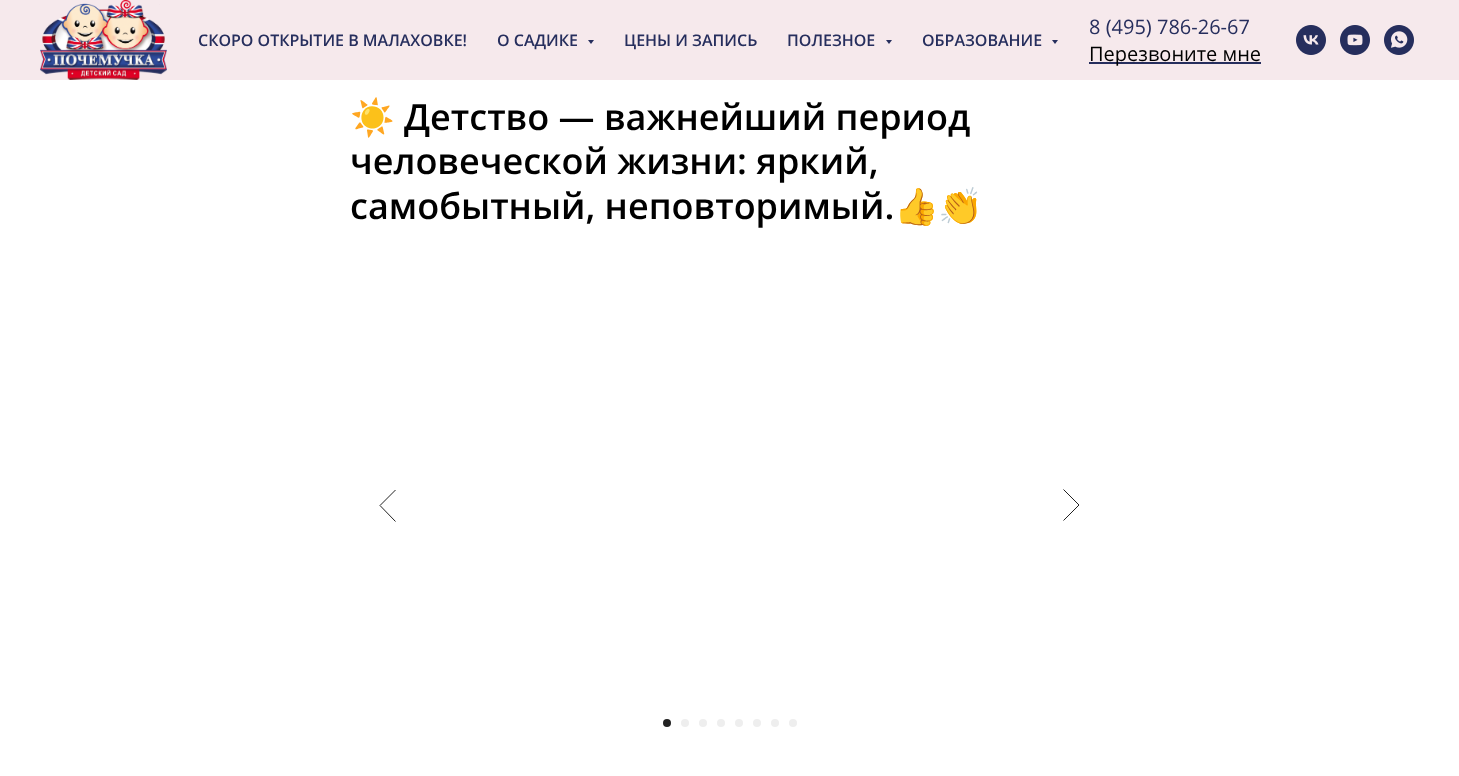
<!DOCTYPE html>
<meta charset="utf-8">
<style>body { margin: 0 } canvas { display: block }</style>
<canvas id="canvas" width="1459" height="776"></canvas>
<script type="module">
  const canvas = document.getElementById("canvas");
  const ctx = canvas.getContext("2d");
  ctx.miterLimit = 4;
  ctx.fontKerning = "normal";
  async function loadImage(src) {
    const img = new Image();
    img.src = src;
    await img.decode();
    return img;
  }

  ctx.fillStyle = "#ffffff";
  ctx.fillRect(0, 0, 1459, 776);
  ctx.fillStyle = "#f6e9ec";
  ctx.fillRect(0, 0, 1459, 80);
  ctx.drawImage(await loadImage("img1.png"), 40, 0, 127, 80);
  ctx.font = "600 16px Open Sans";
  ctx.fillStyle = "#262e5d";
  ctx.fillText("СКОРО ОТКРЫТИЕ В МАЛАХОВКЕ!", 198, 46);
  ctx.fillText("О САДИКЕ", 497, 46);
  ctx.beginPath();
  ctx.moveTo(588, 40);
  ctx.lineTo(594, 40);
  ctx.lineTo(591, 44);
  ctx.closePath();
  ctx.fill();
  ctx.fillText("ЦЕНЫ И ЗАПИСЬ", 624, 46);
  ctx.fillText("ПОЛЕЗНОЕ", 787, 46);
  ctx.beginPath();
  ctx.moveTo(886, 40);
  ctx.lineTo(892, 40);
  ctx.lineTo(889, 44);
  ctx.closePath();
  ctx.fill();
  ctx.fillText("ОБРАЗОВАНИЕ", 922, 46);
  ctx.beginPath();
  ctx.moveTo(1052, 40);
  ctx.lineTo(1058, 40);
  ctx.lineTo(1055, 44);
  ctx.closePath();
  ctx.fill();
  ctx.font = "20px Open Sans";
  ctx.fillText("8 (495) 786-26-67", 1089, 34);
  ctx.fillRect(1089, 62, 172, 2);
  ctx.fillStyle = "#000000";
  ctx.fillText("Перезвоните мне", 1089, 61);
  ctx.drawImage(await loadImage("img2.png"), 1296, 25, 30, 30);
  ctx.drawImage(await loadImage("img3.png"), 1340, 25, 30, 30);
  ctx.drawImage(await loadImage("img4.png"), 1384, 25, 30, 30);
  ctx.font = "bold 36px Noto Color Emoji";
  ctx.fillText("☀️", 350, 130);
  ctx.font = "600 36px Open Sans";
  ctx.fillText("Детство — важнейший период", 404, 130);
  ctx.fillText("человеческой жизни: яркий,", 350, 174);
  ctx.fillText("самобытный, неповторимый.", 350, 219);
  ctx.font = "bold 36px Noto Color Emoji";
  ctx.fillText("👍👏", 894, 219);
  ctx.beginPath();
  ctx.moveTo(395.5, 521.5);
  ctx.lineTo(380, 505.5);
  ctx.lineTo(395.5, 490);
  ctx.strokeStyle = "#222222";
  ctx.stroke();
  ctx.beginPath();
  ctx.moveTo(1063.5, 489.5);
  ctx.lineTo(1079, 505);
  ctx.lineTo(1063.5, 520.5);
  ctx.stroke();
  ctx.fillStyle = "#222222";
  ctx.beginPath();
  ctx.arc(667, 723, 4, 0, Math.PI * 2);
  ctx.fill();
  ctx.fillStyle = "#eeeeee";
  ctx.beginPath();
  ctx.arc(685, 723, 4, 0, Math.PI * 2);
  ctx.fill();
  ctx.beginPath();
  ctx.arc(703, 723, 4, 0, Math.PI * 2);
  ctx.fill();
  ctx.beginPath();
  ctx.arc(721, 723, 4, 0, Math.PI * 2);
  ctx.fill();
  ctx.beginPath();
  ctx.arc(739, 723, 4, 0, Math.PI * 2);
  ctx.fill();
  ctx.beginPath();
  ctx.arc(757, 723, 4, 0, Math.PI * 2);
  ctx.fill();
  ctx.beginPath();
  ctx.arc(775, 723, 4, 0, Math.PI * 2);
  ctx.fill();
  ctx.beginPath();
  ctx.arc(793, 723, 4, 0, Math.PI * 2);
  ctx.fill();
</script>
